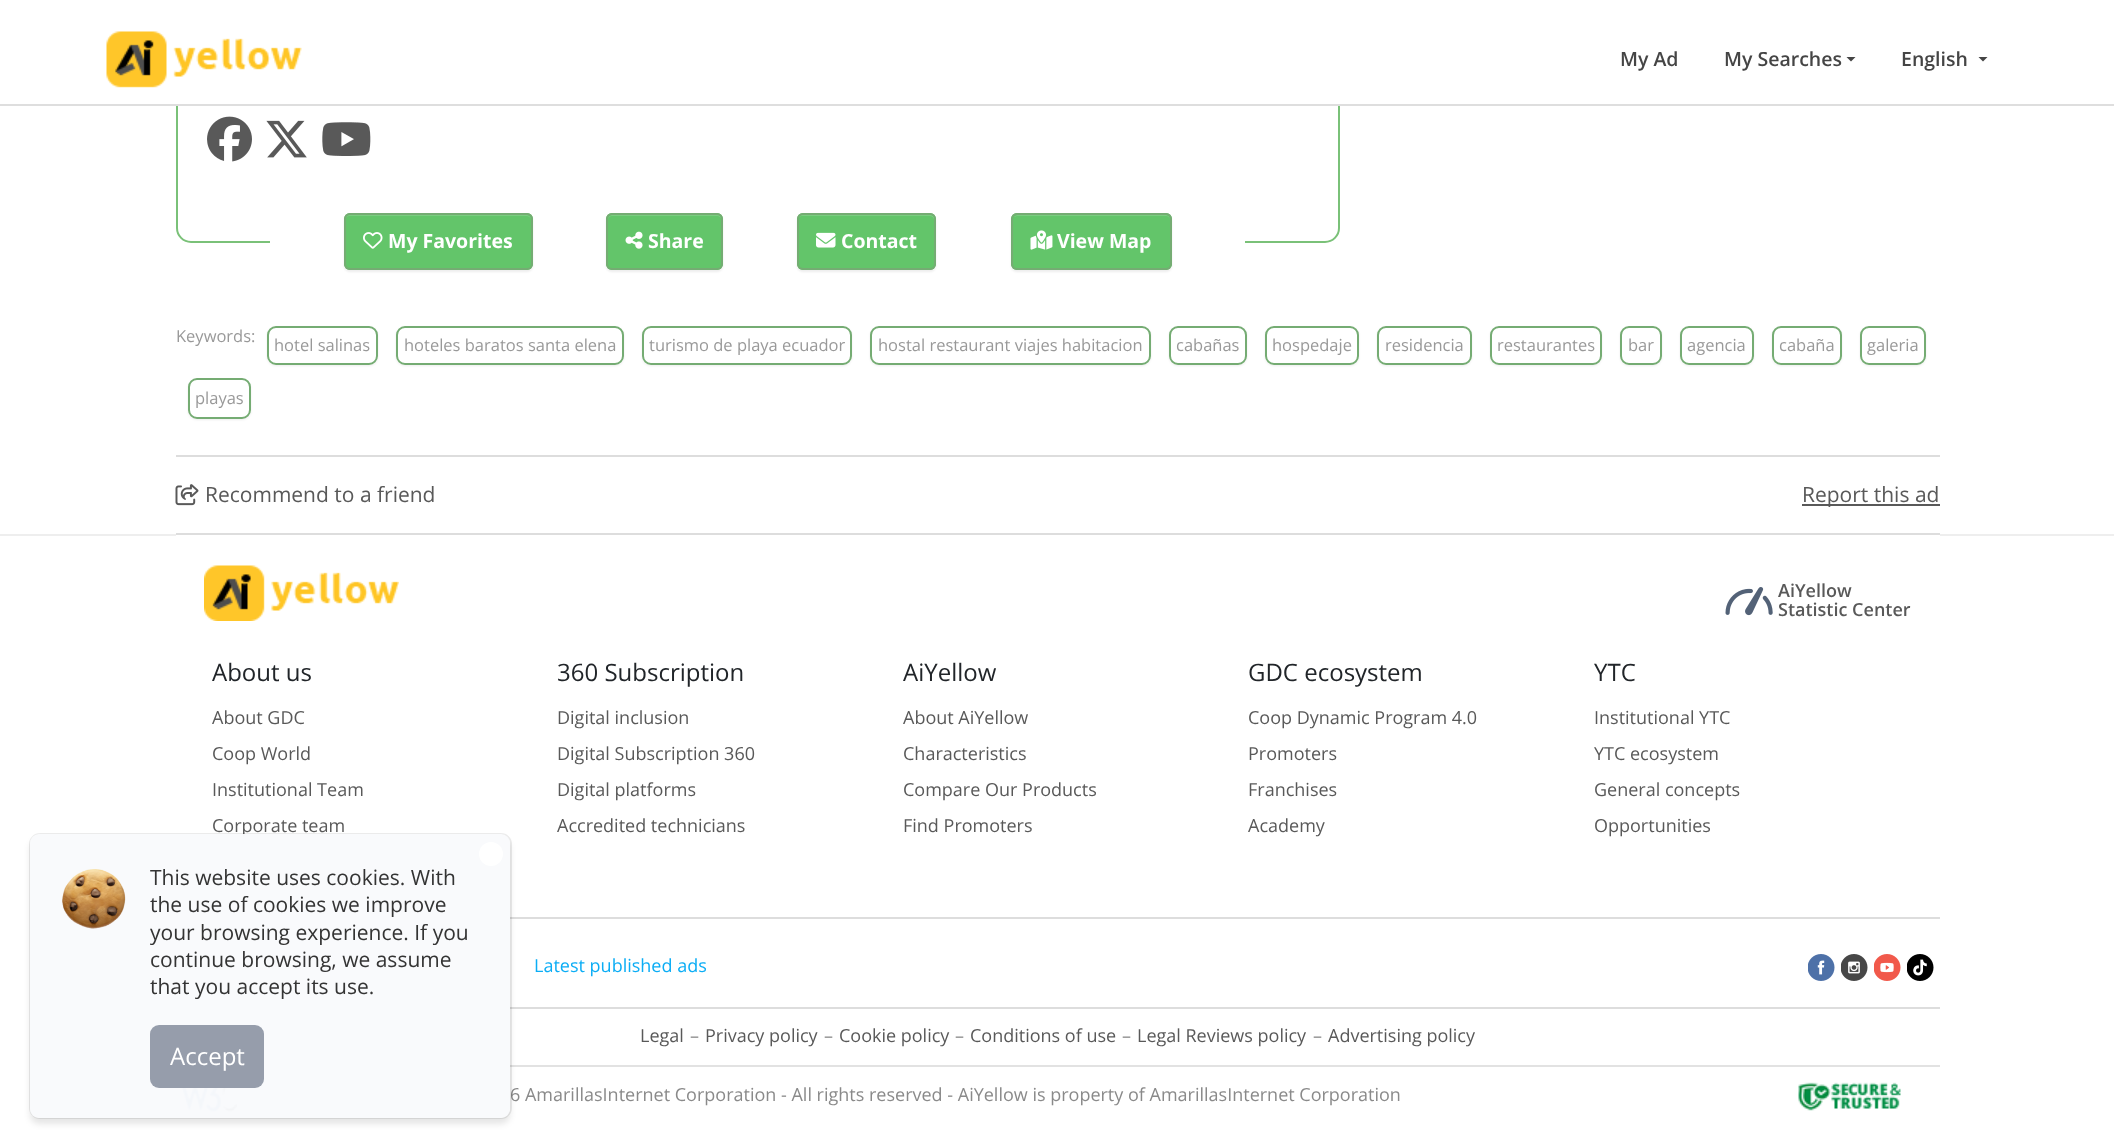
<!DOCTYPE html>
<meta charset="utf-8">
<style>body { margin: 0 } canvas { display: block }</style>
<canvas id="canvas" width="2114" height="1147"></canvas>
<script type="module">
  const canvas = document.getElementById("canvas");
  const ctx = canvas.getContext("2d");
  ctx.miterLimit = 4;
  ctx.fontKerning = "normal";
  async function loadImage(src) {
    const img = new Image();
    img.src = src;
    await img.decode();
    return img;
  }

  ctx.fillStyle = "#ffffff";
  ctx.fillRect(0, 0, 2114, 1147);
  ctx.beginPath();
  ctx.roundRect(177, -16, 1162, 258, 14);
  ctx.strokeStyle = "#7ac178";
  ctx.lineWidth = 2;
  ctx.stroke();
  ctx.fillRect(176, 0, 1164, 104);
  ctx.fillStyle = "#dedede";
  ctx.fillRect(0, 104, 2114, 2);
  ctx.drawImage(await loadImage("img1.png"), 106, 31, 196, 57);
  ctx.font = "600 19.5px Open Sans";
  ctx.fillStyle = "#454545";
  ctx.fillText("My Ad", 1620, 66);
  ctx.fillText("My Searches", 1724, 66);
  ctx.beginPath();
  ctx.moveTo(1846.5, 57);
  ctx.lineTo(1855.5, 57);
  ctx.lineTo(1851, 61.5);
  ctx.closePath();
  ctx.fill();
  ctx.fillText("English", 1901, 66);
  ctx.beginPath();
  ctx.moveTo(1978.5, 57);
  ctx.lineTo(1987.5, 57);
  ctx.lineTo(1983, 61.5);
  ctx.closePath();
  ctx.fill();
  ctx.drawImage(await loadImage("img2.png"), 207, 116, 45, 46);
  ctx.drawImage(await loadImage("img3.png"), 266, 120, 41, 38);
  ctx.drawImage(await loadImage("img4.png"), 322, 122, 49, 34);
  ctx.fillStyle = "#ffffff";
  ctx.fillRect(270, 241, 975, 2);
  ctx.fillStyle = "rgba(0, 0, 0, 0.07)";
  ctx.filter = "blur(1px)";
  ctx.beginPath();
  ctx.roundRect(344, 215, 189, 57, 6);
  ctx.fill();
  ctx.filter = "none";
  ctx.fillStyle = "#63c56a";
  ctx.beginPath();
  ctx.roundRect(344, 213, 189, 57, 6);
  ctx.fill();
  ctx.fillStyle = "#7ace80";
  ctx.beginPath();
  ctx.moveTo(350, 216);
  ctx.lineTo(526, 216);
  ctx.bezierCurveTo(529, 216, 531, 218, 531, 220);
  ctx.bezierCurveTo(531, 217, 529, 215, 526, 215);
  ctx.lineTo(350, 215);
  ctx.bezierCurveTo(347, 215, 345, 217, 345, 220);
  ctx.bezierCurveTo(345, 218, 347, 216, 350, 216);
  ctx.closePath();
  ctx.fill();
  ctx.beginPath();
  ctx.roundRect(345, 214, 187, 55, 5);
  ctx.strokeStyle = "#75ac73";
  ctx.stroke();
  ctx.drawImage(await loadImage("img5.png"), 363, 232, 20, 17);
  ctx.font = "bold 19.5px Open Sans";
  ctx.fillStyle = "#ffffff";
  ctx.fillText("My Favorites", 388, 248);
  ctx.fillStyle = "rgba(0, 0, 0, 0.07)";
  ctx.filter = "blur(1px)";
  ctx.beginPath();
  ctx.roundRect(606, 215, 117, 57, 6);
  ctx.fill();
  ctx.filter = "none";
  ctx.fillStyle = "#63c56a";
  ctx.beginPath();
  ctx.roundRect(606, 213, 117, 57, 6);
  ctx.fill();
  ctx.fillStyle = "#7ace80";
  ctx.beginPath();
  ctx.moveTo(612, 216);
  ctx.lineTo(717, 216);
  ctx.bezierCurveTo(719, 216, 722, 218, 722, 220);
  ctx.bezierCurveTo(722, 217, 720, 215, 717, 215);
  ctx.lineTo(613, 215);
  ctx.bezierCurveTo(610, 215, 608, 217, 608, 220);
  ctx.bezierCurveTo(608, 218, 610, 216, 612, 216);
  ctx.closePath();
  ctx.fill();
  ctx.beginPath();
  ctx.roundRect(607, 214, 115, 55, 5);
  ctx.stroke();
  ctx.drawImage(await loadImage("img6.png"), 625, 231, 18, 18);
  ctx.fillStyle = "#ffffff";
  ctx.fillText("Share", 648, 248);
  ctx.fillStyle = "rgba(0, 0, 0, 0.07)";
  ctx.filter = "blur(1px)";
  ctx.beginPath();
  ctx.roundRect(797, 215, 139, 57, 6);
  ctx.fill();
  ctx.filter = "none";
  ctx.fillStyle = "#63c56a";
  ctx.beginPath();
  ctx.roundRect(797, 213, 139, 57, 6);
  ctx.fill();
  ctx.fillStyle = "#7ace80";
  ctx.beginPath();
  ctx.moveTo(802, 216);
  ctx.lineTo(930, 216);
  ctx.bezierCurveTo(936, 216, 934, 225, 934, 228);
  ctx.lineTo(934, 267);
  ctx.bezierCurveTo(935, 266, 935, 265, 935, 264);
  ctx.lineTo(935, 220);
  ctx.bezierCurveTo(935, 217, 933, 215, 930, 215);
  ctx.lineTo(803, 215);
  ctx.bezierCurveTo(800, 215, 798, 217, 798, 220);
  ctx.bezierCurveTo(798, 218, 800, 216, 802, 216);
  ctx.closePath();
  ctx.fill();
  ctx.beginPath();
  ctx.roundRect(798, 214, 137, 55, 5);
  ctx.stroke();
  ctx.drawImage(await loadImage("img7.png"), 816, 232, 20, 16);
  ctx.fillStyle = "#ffffff";
  ctx.fillText("Contact", 841, 248);
  ctx.fillStyle = "rgba(0, 0, 0, 0.07)";
  ctx.filter = "blur(1px)";
  ctx.beginPath();
  ctx.roundRect(1011, 215, 161, 57, 6);
  ctx.fill();
  ctx.filter = "none";
  ctx.fillStyle = "#63c56a";
  ctx.beginPath();
  ctx.roundRect(1011, 213, 161, 57, 6);
  ctx.fill();
  ctx.fillStyle = "#7ace80";
  ctx.beginPath();
  ctx.moveTo(1017, 216);
  ctx.lineTo(1166, 216);
  ctx.bezierCurveTo(1168, 216, 1170, 218, 1170, 220);
  ctx.bezierCurveTo(1170, 217, 1168, 215, 1165, 215);
  ctx.lineTo(1018, 215);
  ctx.bezierCurveTo(1016, 215, 1015, 216, 1014, 217);
  ctx.closePath();
  ctx.fill();
  ctx.beginPath();
  ctx.roundRect(1012, 214, 159, 55, 5);
  ctx.stroke();
  ctx.drawImage(await loadImage("img8.png"), 1030, 230, 23, 20);
  ctx.fillStyle = "#ffffff";
  ctx.fillText("View Map", 1057, 248);
  ctx.font = "16.5px Open Sans";
  ctx.fillStyle = "#999999";
  ctx.fillText("Keywords:", 176, 342);
  ctx.save();
  ctx.beginPath();
  ctx.moveTo(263, 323);
  ctx.lineTo(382, 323);
  ctx.lineTo(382, 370);
  ctx.lineTo(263, 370);
  ctx.closePath();
  ctx.moveTo(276, 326);
  ctx.lineTo(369, 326);
  ctx.bezierCurveTo(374, 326, 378, 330, 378, 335);
  ctx.lineTo(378, 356);
  ctx.bezierCurveTo(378, 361, 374, 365, 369, 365);
  ctx.lineTo(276, 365);
  ctx.bezierCurveTo(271, 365, 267, 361, 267, 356);
  ctx.lineTo(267, 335);
  ctx.bezierCurveTo(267, 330, 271, 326, 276, 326);
  ctx.closePath();
  ctx.clip("evenodd");
  ctx.fillStyle = "rgba(0, 0, 0, 0.07)";
  ctx.filter = "blur(1px)";
  ctx.beginPath();
  ctx.roundRect(267, 327, 111, 39, 9);
  ctx.fill();
  ctx.filter = "none";
  ctx.restore();
  ctx.beginPath();
  ctx.roundRect(268, 327, 109, 37, 8);
  ctx.stroke();
  ctx.fillText("hotel salinas", 274, 351);
  ctx.save();
  ctx.beginPath();
  ctx.moveTo(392, 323);
  ctx.lineTo(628, 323);
  ctx.lineTo(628, 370);
  ctx.lineTo(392, 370);
  ctx.closePath();
  ctx.moveTo(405, 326);
  ctx.lineTo(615, 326);
  ctx.bezierCurveTo(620, 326, 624, 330, 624, 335);
  ctx.lineTo(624, 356);
  ctx.bezierCurveTo(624, 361, 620, 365, 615, 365);
  ctx.lineTo(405, 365);
  ctx.bezierCurveTo(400, 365, 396, 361, 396, 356);
  ctx.lineTo(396, 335);
  ctx.bezierCurveTo(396, 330, 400, 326, 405, 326);
  ctx.closePath();
  ctx.clip("evenodd");
  ctx.fillStyle = "rgba(0, 0, 0, 0.07)";
  ctx.filter = "blur(1px)";
  ctx.beginPath();
  ctx.roundRect(396, 327, 228, 39, 9);
  ctx.fill();
  ctx.filter = "none";
  ctx.restore();
  ctx.beginPath();
  ctx.roundRect(397, 327, 226, 37, 8);
  ctx.stroke();
  ctx.fillText("hoteles baratos santa elena", 404, 351);
  ctx.save();
  ctx.beginPath();
  ctx.moveTo(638, 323);
  ctx.lineTo(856, 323);
  ctx.lineTo(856, 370);
  ctx.lineTo(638, 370);
  ctx.closePath();
  ctx.moveTo(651, 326);
  ctx.lineTo(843, 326);
  ctx.bezierCurveTo(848, 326, 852, 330, 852, 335);
  ctx.lineTo(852, 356);
  ctx.bezierCurveTo(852, 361, 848, 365, 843, 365);
  ctx.lineTo(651, 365);
  ctx.bezierCurveTo(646, 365, 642, 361, 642, 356);
  ctx.lineTo(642, 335);
  ctx.bezierCurveTo(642, 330, 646, 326, 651, 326);
  ctx.closePath();
  ctx.clip("evenodd");
  ctx.fillStyle = "rgba(0, 0, 0, 0.07)";
  ctx.filter = "blur(1px)";
  ctx.beginPath();
  ctx.roundRect(642, 327, 210, 39, 9);
  ctx.fill();
  ctx.filter = "none";
  ctx.restore();
  ctx.beginPath();
  ctx.roundRect(643, 327, 208, 37, 8);
  ctx.stroke();
  ctx.fillText("turismo de playa ecuador", 649, 351);
  ctx.save();
  ctx.beginPath();
  ctx.moveTo(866, 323);
  ctx.lineTo(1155, 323);
  ctx.lineTo(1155, 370);
  ctx.lineTo(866, 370);
  ctx.closePath();
  ctx.moveTo(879, 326);
  ctx.lineTo(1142, 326);
  ctx.bezierCurveTo(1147, 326, 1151, 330, 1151, 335);
  ctx.lineTo(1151, 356);
  ctx.bezierCurveTo(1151, 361, 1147, 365, 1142, 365);
  ctx.lineTo(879, 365);
  ctx.bezierCurveTo(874, 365, 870, 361, 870, 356);
  ctx.lineTo(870, 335);
  ctx.bezierCurveTo(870, 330, 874, 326, 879, 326);
  ctx.closePath();
  ctx.clip("evenodd");
  ctx.fillStyle = "rgba(0, 0, 0, 0.07)";
  ctx.filter = "blur(1px)";
  ctx.beginPath();
  ctx.roundRect(870, 327, 281, 39, 9);
  ctx.fill();
  ctx.filter = "none";
  ctx.restore();
  ctx.beginPath();
  ctx.roundRect(871, 327, 279, 37, 8);
  ctx.stroke();
  ctx.fillText("hostal restaurant viajes habitacion", 878, 351);
  ctx.save();
  ctx.beginPath();
  ctx.moveTo(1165, 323);
  ctx.lineTo(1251, 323);
  ctx.lineTo(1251, 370);
  ctx.lineTo(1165, 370);
  ctx.closePath();
  ctx.moveTo(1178, 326);
  ctx.lineTo(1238, 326);
  ctx.bezierCurveTo(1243, 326, 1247, 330, 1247, 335);
  ctx.lineTo(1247, 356);
  ctx.bezierCurveTo(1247, 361, 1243, 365, 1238, 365);
  ctx.lineTo(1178, 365);
  ctx.bezierCurveTo(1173, 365, 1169, 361, 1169, 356);
  ctx.lineTo(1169, 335);
  ctx.bezierCurveTo(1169, 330, 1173, 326, 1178, 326);
  ctx.closePath();
  ctx.clip("evenodd");
  ctx.fillStyle = "rgba(0, 0, 0, 0.07)";
  ctx.filter = "blur(1px)";
  ctx.beginPath();
  ctx.roundRect(1169, 327, 78, 39, 9);
  ctx.fill();
  ctx.filter = "none";
  ctx.restore();
  ctx.beginPath();
  ctx.roundRect(1170, 327, 76, 37, 8);
  ctx.stroke();
  ctx.fillText("cabañas", 1176, 351);
  ctx.save();
  ctx.beginPath();
  ctx.moveTo(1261, 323);
  ctx.lineTo(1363, 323);
  ctx.lineTo(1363, 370);
  ctx.lineTo(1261, 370);
  ctx.closePath();
  ctx.moveTo(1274, 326);
  ctx.lineTo(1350, 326);
  ctx.bezierCurveTo(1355, 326, 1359, 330, 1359, 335);
  ctx.lineTo(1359, 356);
  ctx.bezierCurveTo(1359, 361, 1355, 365, 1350, 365);
  ctx.lineTo(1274, 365);
  ctx.bezierCurveTo(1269, 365, 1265, 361, 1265, 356);
  ctx.lineTo(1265, 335);
  ctx.bezierCurveTo(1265, 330, 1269, 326, 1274, 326);
  ctx.closePath();
  ctx.clip("evenodd");
  ctx.fillStyle = "rgba(0, 0, 0, 0.07)";
  ctx.filter = "blur(1px)";
  ctx.beginPath();
  ctx.roundRect(1265, 327, 94, 39, 9);
  ctx.fill();
  ctx.filter = "none";
  ctx.restore();
  ctx.beginPath();
  ctx.roundRect(1266, 327, 92, 37, 8);
  ctx.stroke();
  ctx.fillText("hospedaje", 1272, 351);
  ctx.save();
  ctx.beginPath();
  ctx.moveTo(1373, 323);
  ctx.lineTo(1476, 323);
  ctx.lineTo(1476, 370);
  ctx.lineTo(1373, 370);
  ctx.closePath();
  ctx.moveTo(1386, 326);
  ctx.lineTo(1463, 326);
  ctx.bezierCurveTo(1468, 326, 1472, 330, 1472, 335);
  ctx.lineTo(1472, 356);
  ctx.bezierCurveTo(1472, 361, 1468, 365, 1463, 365);
  ctx.lineTo(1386, 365);
  ctx.bezierCurveTo(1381, 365, 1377, 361, 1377, 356);
  ctx.lineTo(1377, 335);
  ctx.bezierCurveTo(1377, 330, 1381, 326, 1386, 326);
  ctx.closePath();
  ctx.clip("evenodd");
  ctx.fillStyle = "rgba(0, 0, 0, 0.07)";
  ctx.filter = "blur(1px)";
  ctx.beginPath();
  ctx.roundRect(1377, 327, 95, 39, 9);
  ctx.fill();
  ctx.filter = "none";
  ctx.restore();
  ctx.beginPath();
  ctx.roundRect(1378, 327, 93, 37, 8);
  ctx.stroke();
  ctx.fillText("residencia", 1385, 351);
  ctx.save();
  ctx.beginPath();
  ctx.moveTo(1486, 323);
  ctx.lineTo(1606, 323);
  ctx.lineTo(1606, 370);
  ctx.lineTo(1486, 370);
  ctx.closePath();
  ctx.moveTo(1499, 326);
  ctx.lineTo(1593, 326);
  ctx.bezierCurveTo(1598, 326, 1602, 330, 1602, 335);
  ctx.lineTo(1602, 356);
  ctx.bezierCurveTo(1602, 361, 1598, 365, 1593, 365);
  ctx.lineTo(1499, 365);
  ctx.bezierCurveTo(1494, 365, 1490, 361, 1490, 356);
  ctx.lineTo(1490, 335);
  ctx.bezierCurveTo(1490, 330, 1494, 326, 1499, 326);
  ctx.closePath();
  ctx.clip("evenodd");
  ctx.fillStyle = "rgba(0, 0, 0, 0.07)";
  ctx.filter = "blur(1px)";
  ctx.beginPath();
  ctx.roundRect(1490, 327, 112, 39, 9);
  ctx.fill();
  ctx.filter = "none";
  ctx.restore();
  ctx.beginPath();
  ctx.roundRect(1491, 327, 110, 37, 8);
  ctx.stroke();
  ctx.fillText("restaurantes", 1497, 351);
  ctx.save();
  ctx.beginPath();
  ctx.moveTo(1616, 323);
  ctx.lineTo(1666, 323);
  ctx.lineTo(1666, 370);
  ctx.lineTo(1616, 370);
  ctx.closePath();
  ctx.moveTo(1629, 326);
  ctx.lineTo(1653, 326);
  ctx.bezierCurveTo(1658, 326, 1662, 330, 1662, 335);
  ctx.lineTo(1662, 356);
  ctx.bezierCurveTo(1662, 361, 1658, 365, 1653, 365);
  ctx.lineTo(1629, 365);
  ctx.bezierCurveTo(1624, 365, 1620, 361, 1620, 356);
  ctx.lineTo(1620, 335);
  ctx.bezierCurveTo(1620, 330, 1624, 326, 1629, 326);
  ctx.closePath();
  ctx.clip("evenodd");
  ctx.fillStyle = "rgba(0, 0, 0, 0.07)";
  ctx.filter = "blur(1px)";
  ctx.beginPath();
  ctx.roundRect(1620, 327, 42, 39, 9);
  ctx.fill();
  ctx.filter = "none";
  ctx.restore();
  ctx.beginPath();
  ctx.roundRect(1621, 327, 40, 37, 8);
  ctx.stroke();
  ctx.fillText("bar", 1628, 351);
  ctx.save();
  ctx.beginPath();
  ctx.moveTo(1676, 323);
  ctx.lineTo(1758, 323);
  ctx.lineTo(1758, 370);
  ctx.lineTo(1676, 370);
  ctx.closePath();
  ctx.moveTo(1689, 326);
  ctx.lineTo(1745, 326);
  ctx.bezierCurveTo(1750, 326, 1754, 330, 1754, 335);
  ctx.lineTo(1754, 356);
  ctx.bezierCurveTo(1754, 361, 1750, 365, 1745, 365);
  ctx.lineTo(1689, 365);
  ctx.bezierCurveTo(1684, 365, 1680, 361, 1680, 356);
  ctx.lineTo(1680, 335);
  ctx.bezierCurveTo(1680, 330, 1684, 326, 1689, 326);
  ctx.closePath();
  ctx.clip("evenodd");
  ctx.fillStyle = "rgba(0, 0, 0, 0.07)";
  ctx.filter = "blur(1px)";
  ctx.beginPath();
  ctx.roundRect(1680, 327, 74, 39, 9);
  ctx.fill();
  ctx.filter = "none";
  ctx.restore();
  ctx.beginPath();
  ctx.roundRect(1681, 327, 72, 37, 8);
  ctx.stroke();
  ctx.fillText("agencia", 1687, 351);
  ctx.save();
  ctx.beginPath();
  ctx.moveTo(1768, 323);
  ctx.lineTo(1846, 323);
  ctx.lineTo(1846, 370);
  ctx.lineTo(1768, 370);
  ctx.closePath();
  ctx.moveTo(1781, 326);
  ctx.lineTo(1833, 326);
  ctx.bezierCurveTo(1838, 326, 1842, 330, 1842, 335);
  ctx.lineTo(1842, 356);
  ctx.bezierCurveTo(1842, 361, 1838, 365, 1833, 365);
  ctx.lineTo(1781, 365);
  ctx.bezierCurveTo(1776, 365, 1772, 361, 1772, 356);
  ctx.lineTo(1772, 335);
  ctx.bezierCurveTo(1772, 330, 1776, 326, 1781, 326);
  ctx.closePath();
  ctx.clip("evenodd");
  ctx.fillStyle = "rgba(0, 0, 0, 0.07)";
  ctx.filter = "blur(1px)";
  ctx.beginPath();
  ctx.roundRect(1772, 327, 70, 39, 9);
  ctx.fill();
  ctx.filter = "none";
  ctx.restore();
  ctx.beginPath();
  ctx.roundRect(1773, 327, 68, 37, 8);
  ctx.stroke();
  ctx.fillText("cabaña", 1779, 351);
  ctx.save();
  ctx.beginPath();
  ctx.moveTo(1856, 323);
  ctx.lineTo(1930, 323);
  ctx.lineTo(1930, 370);
  ctx.lineTo(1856, 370);
  ctx.closePath();
  ctx.moveTo(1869, 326);
  ctx.lineTo(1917, 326);
  ctx.bezierCurveTo(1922, 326, 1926, 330, 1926, 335);
  ctx.lineTo(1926, 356);
  ctx.bezierCurveTo(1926, 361, 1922, 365, 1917, 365);
  ctx.lineTo(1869, 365);
  ctx.bezierCurveTo(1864, 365, 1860, 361, 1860, 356);
  ctx.lineTo(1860, 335);
  ctx.bezierCurveTo(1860, 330, 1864, 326, 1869, 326);
  ctx.closePath();
  ctx.clip("evenodd");
  ctx.fillStyle = "rgba(0, 0, 0, 0.07)";
  ctx.filter = "blur(1px)";
  ctx.beginPath();
  ctx.roundRect(1860, 327, 66, 39, 9);
  ctx.fill();
  ctx.filter = "none";
  ctx.restore();
  ctx.beginPath();
  ctx.roundRect(1861, 327, 64, 37, 8);
  ctx.stroke();
  ctx.fillText("galeria", 1867, 351);
  ctx.save();
  ctx.beginPath();
  ctx.moveTo(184, 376);
  ctx.lineTo(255, 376);
  ctx.lineTo(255, 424);
  ctx.lineTo(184, 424);
  ctx.closePath();
  ctx.moveTo(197, 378);
  ctx.lineTo(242, 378);
  ctx.bezierCurveTo(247, 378, 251, 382, 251, 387);
  ctx.lineTo(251, 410);
  ctx.bezierCurveTo(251, 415, 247, 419, 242, 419);
  ctx.lineTo(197, 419);
  ctx.bezierCurveTo(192, 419, 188, 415, 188, 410);
  ctx.lineTo(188, 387);
  ctx.bezierCurveTo(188, 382, 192, 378, 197, 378);
  ctx.closePath();
  ctx.clip("evenodd");
  ctx.fillStyle = "rgba(0, 0, 0, 0.07)";
  ctx.filter = "blur(1px)";
  ctx.beginPath();
  ctx.roundRect(188, 380, 63, 40, 9);
  ctx.fill();
  ctx.filter = "none";
  ctx.restore();
  ctx.beginPath();
  ctx.roundRect(189, 379, 61, 39, 8);
  ctx.stroke();
  ctx.fillText("playas", 195, 404);
  ctx.fillStyle = "#eeeeee";
  ctx.fillRect(0, 534, 2114, 2);
  ctx.fillStyle = "#ffffff";
  ctx.beginPath();
  ctx.moveTo(176, 534);
  ctx.lineTo(176, 536);
  ctx.lineTo(1940, 536);
  ctx.lineTo(1940, 456);
  ctx.lineTo(1940, 534);
  ctx.closePath();
  ctx.fill();
  ctx.fillStyle = "#dddddd";
  ctx.fillRect(176, 455, 1764, 2);
  ctx.fillRect(176, 533, 1764, 2);
  ctx.drawImage(await loadImage("img9.png"), 175, 484, 24, 22);
  ctx.font = "21px Open Sans";
  ctx.fillStyle = "#595959";
  ctx.fillText("Recommend to a friend", 205, 502);
  ctx.fillRect(1802, 504, 138, 2);
  ctx.fillText("Report this ad", 1802, 502);
  ctx.drawImage(await loadImage("img10.png"), 204, 565, 195, 56);
  ctx.drawImage(await loadImage("img11.png"), 1725, 587, 48, 29);
  ctx.font = "600 18px Open Sans";
  ctx.fillText("AiYellow", 1778, 597);
  ctx.fillText("Statistic Center", 1778, 616);
  ctx.fillStyle = "#dddddd";
  ctx.fillRect(176, 917, 1764, 2);
  ctx.font = "24px Open Sans";
  ctx.fillStyle = "#212529";
  ctx.fillText("About us", 212, 681);
  ctx.font = "18px Open Sans";
  ctx.fillStyle = "#595959";
  ctx.fillText("About GDC", 212, 724);
  ctx.fillText("Coop World", 212, 760);
  ctx.fillText("Institutional Team", 212, 796);
  ctx.fillText("Corporate team", 212, 832);
  ctx.font = "24px Open Sans";
  ctx.fillStyle = "#212529";
  ctx.fillText("360 Subscription", 557, 681);
  ctx.font = "18px Open Sans";
  ctx.fillStyle = "#595959";
  ctx.fillText("Digital inclusion", 557, 724);
  ctx.fillText("Digital Subscription 360", 557, 760);
  ctx.fillText("Digital platforms", 557, 796);
  ctx.fillText("Accredited technicians", 557, 832);
  ctx.font = "24px Open Sans";
  ctx.fillStyle = "#212529";
  ctx.fillText("AiYellow", 903, 681);
  ctx.font = "18px Open Sans";
  ctx.fillStyle = "#595959";
  ctx.fillText("About AiYellow", 903, 724);
  ctx.fillText("Characteristics", 903, 760);
  ctx.fillText("Compare Our Products", 903, 796);
  ctx.fillText("Find Promoters", 903, 832);
  ctx.font = "24px Open Sans";
  ctx.fillStyle = "#212529";
  ctx.fillText("GDC ecosystem", 1248, 681);
  ctx.font = "18px Open Sans";
  ctx.fillStyle = "#595959";
  ctx.fillText("Coop Dynamic Program 4.0", 1248, 724);
  ctx.fillText("Promoters", 1248, 760);
  ctx.fillText("Franchises", 1248, 796);
  ctx.fillText("Academy", 1248, 832);
  ctx.font = "24px Open Sans";
  ctx.fillStyle = "#212529";
  ctx.fillText("YTC", 1594, 681);
  ctx.font = "18px Open Sans";
  ctx.fillStyle = "#595959";
  ctx.fillText("Institutional YTC", 1594, 724);
  ctx.fillText("YTC ecosystem", 1594, 760);
  ctx.fillText("General concepts", 1594, 796);
  ctx.fillText("Opportunities", 1594, 832);
  ctx.fillStyle = "#dddddd";
  ctx.fillRect(176, 1007, 1764, 2);
  ctx.fillStyle = "#0badf5";
  ctx.fillText("Latest published ads", 534, 972);
  ctx.drawImage(await loadImage("img12.png"), 1808, 954, 27, 27);
  ctx.drawImage(await loadImage("img13.png"), 1841, 954, 27, 27);
  ctx.drawImage(await loadImage("img14.png"), 1874, 954, 27, 27);
  ctx.drawImage(await loadImage("img15.png"), 1907, 954, 27, 27);
  ctx.fillStyle = "#e2e2e2";
  ctx.fillRect(176, 1065, 1764, 2);
  ctx.fillStyle = "#595959";
  ctx.fillText("Legal", 640, 1042);
  ctx.fillStyle = "#8a8a8a";
  ctx.fillText("–", 690, 1042);
  ctx.fillStyle = "#595959";
  ctx.fillText("Privacy policy", 705, 1042);
  ctx.fillStyle = "#8a8a8a";
  ctx.fillText("–", 824, 1042);
  ctx.fillStyle = "#595959";
  ctx.fillText("Cookie policy", 839, 1042);
  ctx.fillStyle = "#8a8a8a";
  ctx.fillText("–", 955, 1042);
  ctx.fillStyle = "#595959";
  ctx.fillText("Conditions of use", 970, 1042);
  ctx.fillStyle = "#8a8a8a";
  ctx.fillText("–", 1122, 1042);
  ctx.fillStyle = "#595959";
  ctx.fillText("Legal Reviews policy", 1137, 1042);
  ctx.fillStyle = "#8a8a8a";
  ctx.fillText("–", 1313, 1042);
  ctx.fillStyle = "#595959";
  ctx.fillText("Advertising policy", 1328, 1042);
  ctx.drawImage(await loadImage("img16.png"), 180, 1081, 58, 31);
  ctx.fillStyle = "#8a8a8a";
  ctx.fillText("6 AmarillasInternet Corporation - All rights reserved - AiYellow is property of AmarillasInternet Corporation", 510, 1101);
  ctx.drawImage(await loadImage("img17.png"), 1798, 1082, 103, 29);
  ctx.beginPath();
  ctx.roundRect(30, 834, 481, 284, 10);
  ctx.strokeStyle = "rgba(0, 0, 0, 0.08)";
  ctx.stroke();
  ctx.save();
  ctx.beginPath();
  ctx.moveTo(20, 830);
  ctx.lineTo(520, 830);
  ctx.lineTo(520, 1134);
  ctx.lineTo(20, 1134);
  ctx.closePath();
  ctx.moveTo(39, 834);
  ctx.lineTo(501, 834);
  ctx.bezierCurveTo(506, 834, 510, 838, 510, 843);
  ctx.lineTo(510, 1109);
  ctx.bezierCurveTo(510, 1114, 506, 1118, 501, 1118);
  ctx.lineTo(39, 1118);
  ctx.bezierCurveTo(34, 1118, 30, 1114, 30, 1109);
  ctx.lineTo(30, 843);
  ctx.bezierCurveTo(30, 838, 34, 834, 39, 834);
  ctx.closePath();
  ctx.clip("evenodd");
  ctx.fillStyle = "rgba(0, 0, 0, 0.1)";
  ctx.filter = "blur(3px)";
  ctx.beginPath();
  ctx.roundRect(30, 840, 480, 284, 9);
  ctx.fill();
  ctx.filter = "none";
  ctx.restore();
  ctx.fillStyle = "rgba(249, 250, 252, 0.98)";
  ctx.beginPath();
  ctx.roundRect(30, 834, 480, 284, 9);
  ctx.fill();
  ctx.fillStyle = "#ffffff";
  ctx.beginPath();
  ctx.arc(491, 854, 12, 0, Math.PI * 2);
  ctx.fill();
  ctx.drawImage(await loadImage("img18.png"), 62, 869, 64, 60);
  ctx.font = "21px Open Sans";
  ctx.fillStyle = "#343434";
  ctx.fillText("This website uses cookies. With", 150, 885);
  ctx.fillText("the use of cookies we improve", 150, 912);
  ctx.fillText("your browsing experience. If you", 150, 940);
  ctx.fillText("continue browsing, we assume", 150, 967);
  ctx.fillText("that you accept its use.", 150, 994);
  ctx.fillStyle = "rgba(148, 155, 169, 0.98)";
  ctx.beginPath();
  ctx.roundRect(150, 1025, 114, 63, 9);
  ctx.fill();
  ctx.font = "24px Open Sans";
  ctx.fillStyle = "#ffffff";
  ctx.fillText("Accept", 170, 1065);
</script>
